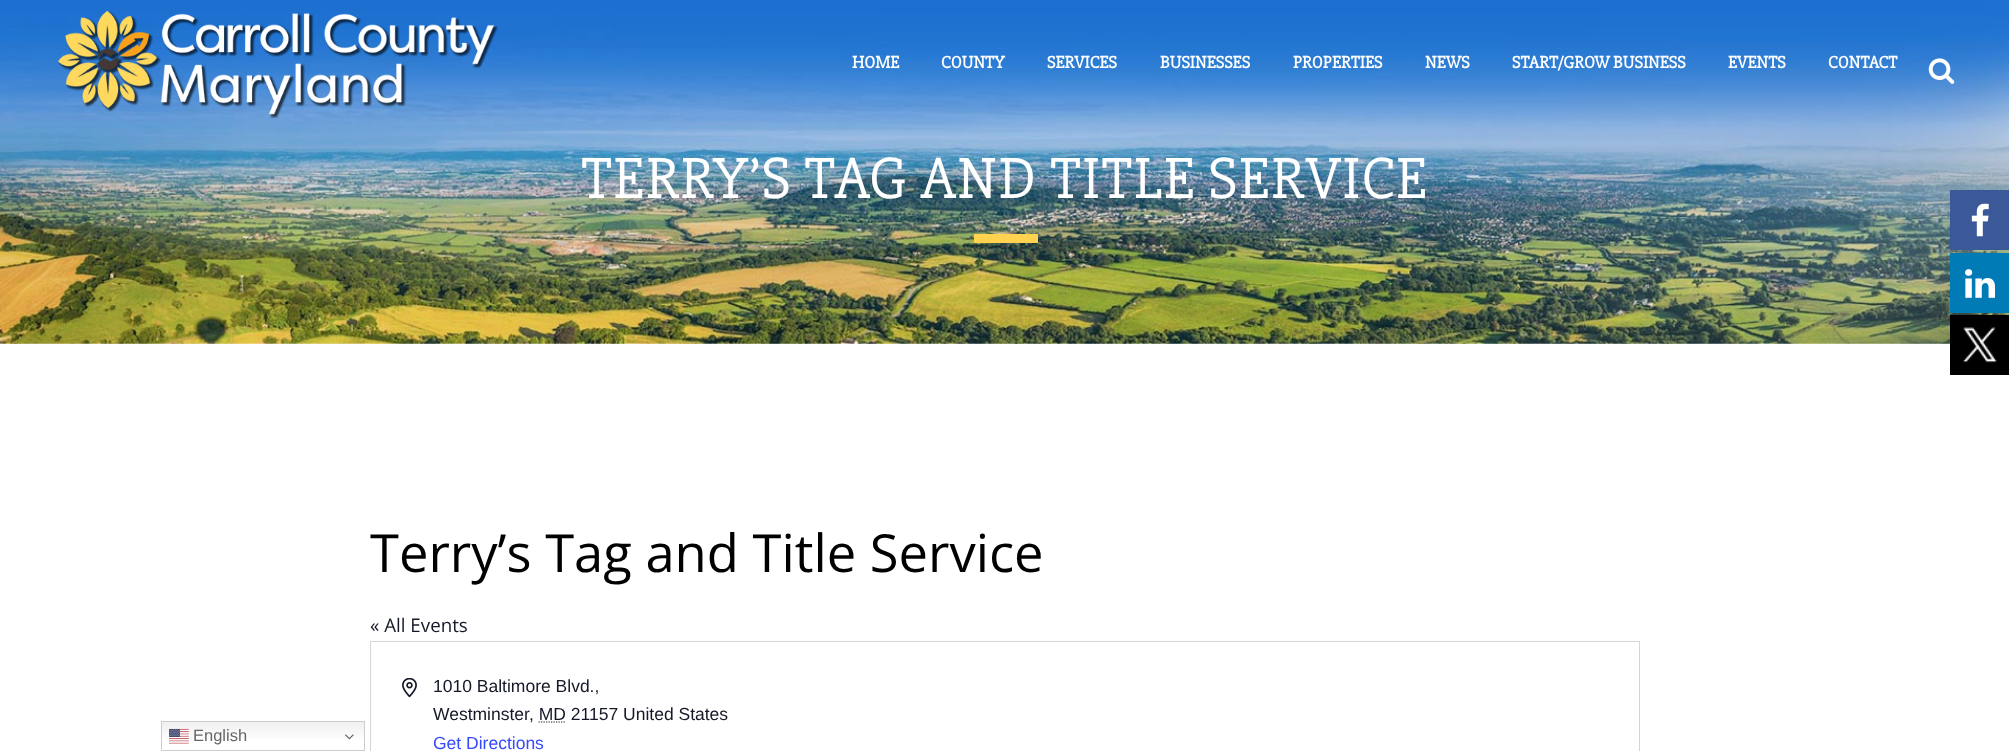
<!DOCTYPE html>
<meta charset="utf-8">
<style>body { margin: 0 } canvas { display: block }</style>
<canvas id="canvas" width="2009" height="751"></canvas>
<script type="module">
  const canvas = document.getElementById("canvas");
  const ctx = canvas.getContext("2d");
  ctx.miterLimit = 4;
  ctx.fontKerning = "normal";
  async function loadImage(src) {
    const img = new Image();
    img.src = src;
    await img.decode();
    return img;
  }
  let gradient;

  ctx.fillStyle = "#ffffff";
  ctx.fillRect(0, 0, 2009, 751);
  ctx.drawImage(await loadImage("img3.png"), 0, 0, 2009, 344);
  ctx.drawImage(await loadImage("img1.png"), 57, 10, 441, 109);
  ctx.font = "bold 17.5px 'Slabo 27px'";
  ctx.fillText("HOME", 852, 68);
  ctx.fillText("COUNTY", 941, 68);
  ctx.fillText("SERVICES", 1047, 68);
  ctx.fillText("BUSINESSES", 1160, 68);
  ctx.fillText("PROPERTIES", 1293, 68);
  ctx.fillText("NEWS", 1425, 68);
  ctx.fillText("START/GROW BUSINESS", 1512, 68);
  ctx.fillText("EVENTS", 1728, 68);
  ctx.fillText("CONTACT", 1828, 68);
  ctx.drawImage(await loadImage("img2.png"), 1928, 58, 27, 26);
  ctx.letterSpacing = "1.25px";
  ctx.font = "60px 'Slabo 27px'";
  ctx.fillText("TERRY’S TAG AND TITLE SERVICE", 581, 198);
  ctx.fillStyle = "#ffd24f";
  ctx.fillRect(974, 234, 64, 9);
  ctx.letterSpacing = "0px";
  ctx.font = "52.5px Open Sans";
  ctx.fillStyle = "#000000";
  ctx.fillText("Terry’s Tag and Title Service", 370, 572);
  ctx.font = "18.75px Open Sans";
  ctx.fillStyle = "#141827";
  ctx.fillText("« All Events", 370, 632);
  ctx.strokeStyle = "#d5d5d5";
  ctx.strokeRect(370.5, 641.5, 1269, 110);
  ctx.drawImage(await loadImage("img4.png"), 402, 678, 15, 20);
  ctx.font = "17.5px Liberation Sans";
  ctx.fillText("1010 Baltimore Blvd.,", 433, 692);
  ctx.fillText("Westminster", 433, 720);
  ctx.fillText(", MD 21157 United States", 529, 720);
  ctx.beginPath();
  ctx.moveTo(538.5, 722);
  ctx.lineTo(565.5, 722);
  ctx.strokeStyle = "#141827";
  ctx.lineWidth = 1.2;
  ctx.setLineDash([1.25, 1.25]);
  ctx.stroke();
  ctx.fillStyle = "#334aff";
  ctx.fillText("Get Directions", 433, 749);
  ctx.fillStyle = "#3b5998";
  ctx.fillRect(1950, 190, 59, 60);
  ctx.drawImage(await loadImage("img5.png"), 1971, 203, 18, 34);
  ctx.fillStyle = "#007bb6";
  ctx.fillRect(1950, 253, 59, 60);
  ctx.drawImage(await loadImage("img6.png"), 1965, 269, 30, 29);
  ctx.drawImage(await loadImage("img7.png"), 1950, 315, 59, 60);
  gradient = ctx.createLinearGradient(263, 721, 263, 751);
  gradient.addColorStop(0, "#efefef");
  gradient.addColorStop(0.7, "#ffffff");
  ctx.fillStyle = gradient;
  ctx.fillRect(162, 722, 202, 17);
  ctx.strokeStyle = "#cccccc";
  ctx.lineWidth = 1;
  ctx.setLineDash([]);
  ctx.strokeRect(161.5, 721.5, 203, 29);
  ctx.drawImage(await loadImage("img8.png"), 169, 728, 20, 16);
  ctx.font = "16.5px Liberation Sans";
  ctx.fillStyle = "#666666";
  ctx.fillText("English", 193, 741);
  ctx.drawImage(await loadImage("img9.png"), 345, 734, 9, 6);
</script>
